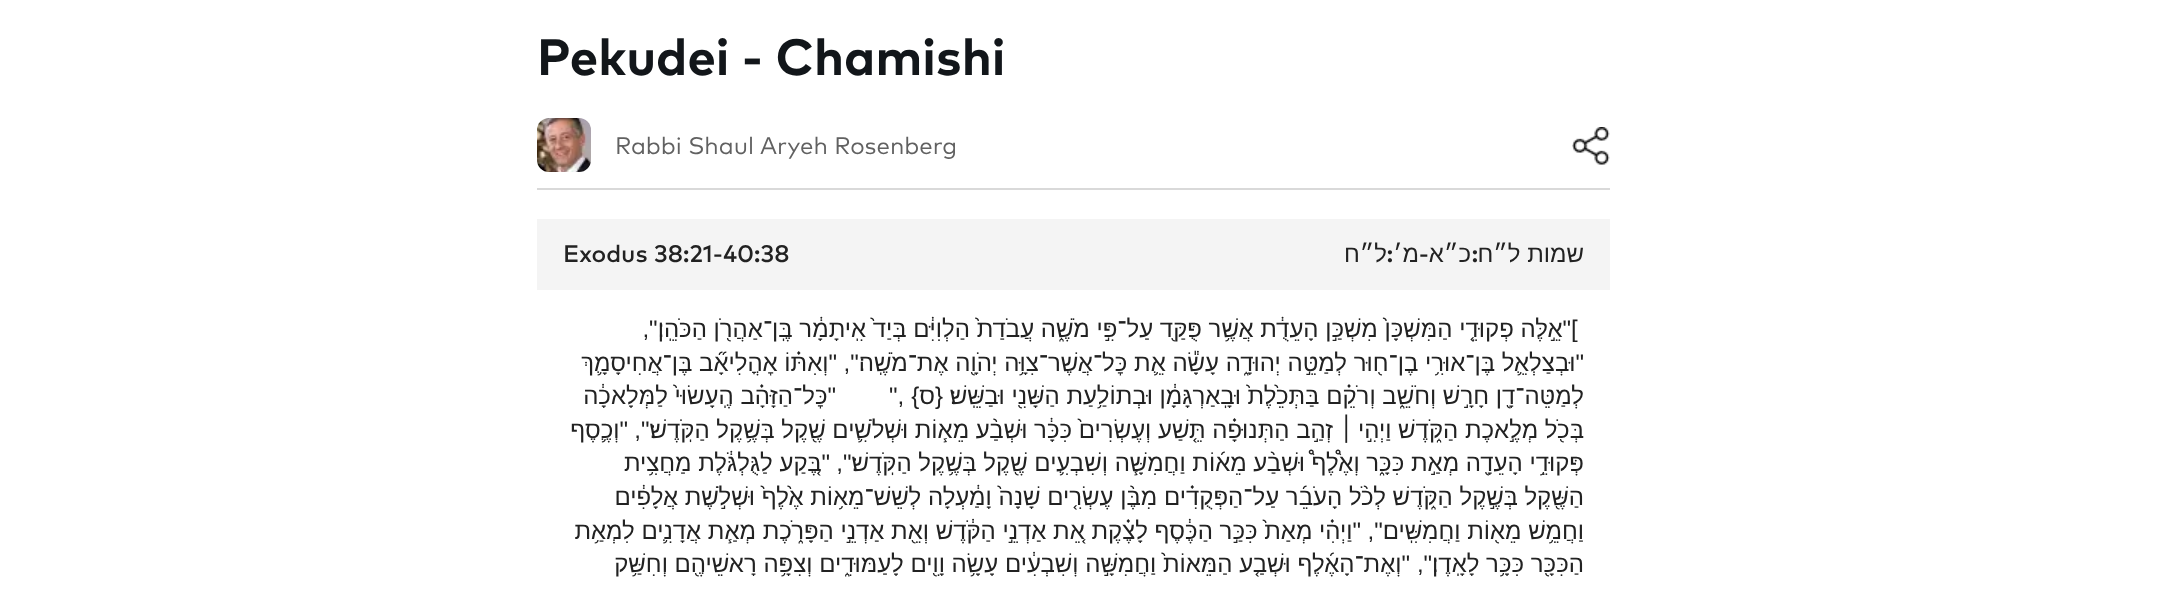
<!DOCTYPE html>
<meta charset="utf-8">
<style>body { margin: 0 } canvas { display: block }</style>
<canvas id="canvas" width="2183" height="604"></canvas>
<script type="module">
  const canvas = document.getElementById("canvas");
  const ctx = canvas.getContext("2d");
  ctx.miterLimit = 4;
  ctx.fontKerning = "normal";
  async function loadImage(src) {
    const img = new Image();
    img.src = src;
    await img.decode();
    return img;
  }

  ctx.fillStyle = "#ffffff";
  ctx.fillRect(0, 0, 2183, 604);
  ctx.font = "bold 51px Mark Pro";
  ctx.fillStyle = "#12161a";
  ctx.fillText("Pekudei - Chamishi", 537, 75);
  ctx.fillStyle = "#d9d9d9";
  ctx.fillRect(537, 188, 1073, 2);
  ctx.drawImage(await loadImage("img1.png"), 1572, 127, 38, 38);
  ctx.font = "24px Mark Pro";
  ctx.fillStyle = "#616161";
  ctx.fillText("Rabbi Shaul Aryeh Rosenberg", 615, 154);
  ctx.drawImage(await loadImage("img2.png"), 537, 118, 54, 54);
  ctx.fillStyle = "#f4f4f4";
  ctx.fillRect(537, 219, 1073, 71);
  ctx.direction = "rtl";
  ctx.font = "24px Liberation Sans";
  ctx.fillStyle = "#222222";
  ctx.fillText("שמות ל״ח", 1584, 262);
  ctx.font = "500 24px Mark Pro";
  ctx.fillText(":", 1478, 262);
  ctx.font = "24px Liberation Sans";
  ctx.fillText("כ״א", 1471, 262);
  ctx.font = "500 24px Mark Pro";
  ctx.fillText("-", 1429, 262);
  ctx.font = "24px Liberation Sans";
  ctx.fillText("מ׳", 1419, 262);
  ctx.font = "500 24px Mark Pro";
  ctx.fillText(":", 1393, 262);
  ctx.font = "24px Liberation Sans";
  ctx.fillText("ל״ח", 1387, 262);
  ctx.direction = "ltr";
  ctx.font = "500 24px Mark Pro";
  ctx.fillText("Exodus 38:21-40:38", 563, 262);
  ctx.font = "24px Liberation Sans";
  ctx.fillText("[", 1571, 337);
  ctx.direction = "rtl";
  ctx.fillText("\"אֵ֣לֶּה פְקוּדֵ֤י הַמִּשְׁכָּן֙ מִשְׁכַּ֣ן הָעֵדֻ֔ת אֲשֶׁ֥ר פֻּקַּ֖ד עַל־פִּ֣י מֹשֶׁ֑ה עֲבֹדַת֙ הַלְוִיִּ֔ם בְּיַד֙ אִֽיתָמָ֔ר בֶּֽן־אַהֲרֹ֖ן הַכֹּהֵֽן׃\",", 1571, 337);
  ctx.fillText("\"וּבְצַלְאֵ֛ל בֶּן־אוּרִ֥י בֶן־ח֖וּר לְמַטֵּ֣ה יְהוּדָ֑ה עָשָׂ֕ה אֵ֛ת כׇּל־אֲשֶׁר־צִוָּ֥ה יְהֹוָ֖ה אֶת־מֹשֶֽׁה׃\",", 1584, 371);
  ctx.fillText("\"וְאִתּ֗וֹ אׇהֳלִיאָ֞ב בֶּן־אֲחִיסָמָ֛ךְ", 837, 371);
  ctx.fillText("לְמַטֵּה־דָ֖ן חָרָ֣שׁ וְחֹשֵׁ֑ב וְרֹקֵ֗ם בַּתְּכֵ֙לֶת֙ וּבָֽאַרְגָּמָ֔ן וּבְתוֹלַ֥עַת הַשָּׁנִ֖י וּבַשֵּֽׁשׁ׃", 1584, 404);
  ctx.fillText("{ס}", 943, 404);
  ctx.direction = "ltr";
  ctx.fillText("\",", 889, 404);
  ctx.direction = "rtl";
  ctx.fillText("\"כׇּל־הַזָּהָ֗ב הֶֽעָשׂוּי֙ לַמְּלָאכָ֔ה", 836, 404);
  ctx.fillText("בְּכֹ֖ל מְלֶ֣אכֶת הַקֹּ֑דֶשׁ וַיְהִ֣י", 1584, 438);
  ctx.fillText("׀", 1353, 438);
  ctx.fillText("זְהַ֣ב הַתְּנוּפָ֗ה תֵּ֤שַׁע וְעֶשְׂרִים֙ כִּכָּ֔ר וּשְׁבַ֨ע מֵא֧וֹת וּשְׁלֹשִׁ֛ים שֶׁ֖קֶל בְּשֶׁ֥קֶל הַקֹּֽדֶשׁ׃\",", 1333, 438);
  ctx.fillText("\"וְכֶ֛סֶף", 628, 438);
  ctx.fillText("פְּקוּדֵ֥י הָעֵדָ֖ה מְאַ֣ת כִּכָּ֑ר וְאֶ֩לֶף֩ וּשְׁבַ֨ע מֵא֜וֹת וַחֲמִשָּׁ֧ה וְשִׁבְעִ֛ים שֶׁ֖קֶל בְּשֶׁ֥קֶל הַקֹּֽדֶשׁ׃\",", 1584, 471);
  ctx.fillText("\"בֶּ֚קַע לַגֻּלְגֹּ֔לֶת מַחֲצִ֥ית", 830, 471);
  ctx.fillText("הַשֶּׁ֖קֶל בְּשֶׁ֣קֶל הַקֹּ֑דֶשׁ לְכֹ֨ל הָעֹבֵ֜ר עַל־הַפְּקֻדִ֗ים מִבֶּ֨ן עֶשְׂרִ֤ים שָׁנָה֙ וָמַ֔עְלָה לְשֵׁשׁ־מֵא֥וֹת אֶ֙לֶף֙ וּשְׁלֹ֣שֶׁת אֲלָפִ֔ים", 1584, 505);
  ctx.fillText("וַחֲמֵ֥שׁ מֵא֖וֹת וַחֲמִשִּֽׁים׃\",", 1584, 539);
  ctx.fillText("\"וַיְהִ֗י מְאַת֙ כִּכַּ֣ר הַכֶּ֔סֶף לָצֶ֗קֶת אֵ֚ת אַדְנֵ֣י הַקֹּ֔דֶשׁ וְאֵ֖ת אַדְנֵ֣י הַפָּרֹ֑כֶת מְאַ֧ת אֲדָנִ֛ים לִמְאַ֥ת", 1361, 539);
  ctx.fillText("הַכִּכָּ֖ר כִּכָּ֥ר לָאָֽדֶן׃\",", 1584, 572);
  ctx.fillText("\"וְאֶת־הָאֶ֜לֶף וּשְׁבַ֤ע הַמֵּאוֹת֙ וַחֲמִשָּׁ֣ה וְשִׁבְעִ֔ים עָשָׂ֥ה וָוִ֖ים לָעַמּוּדִ֑ים וְצִפָּ֥ה רָאשֵׁיהֶ֖ם וְחִשַּׁ֥ק", 1410, 572);
</script>
